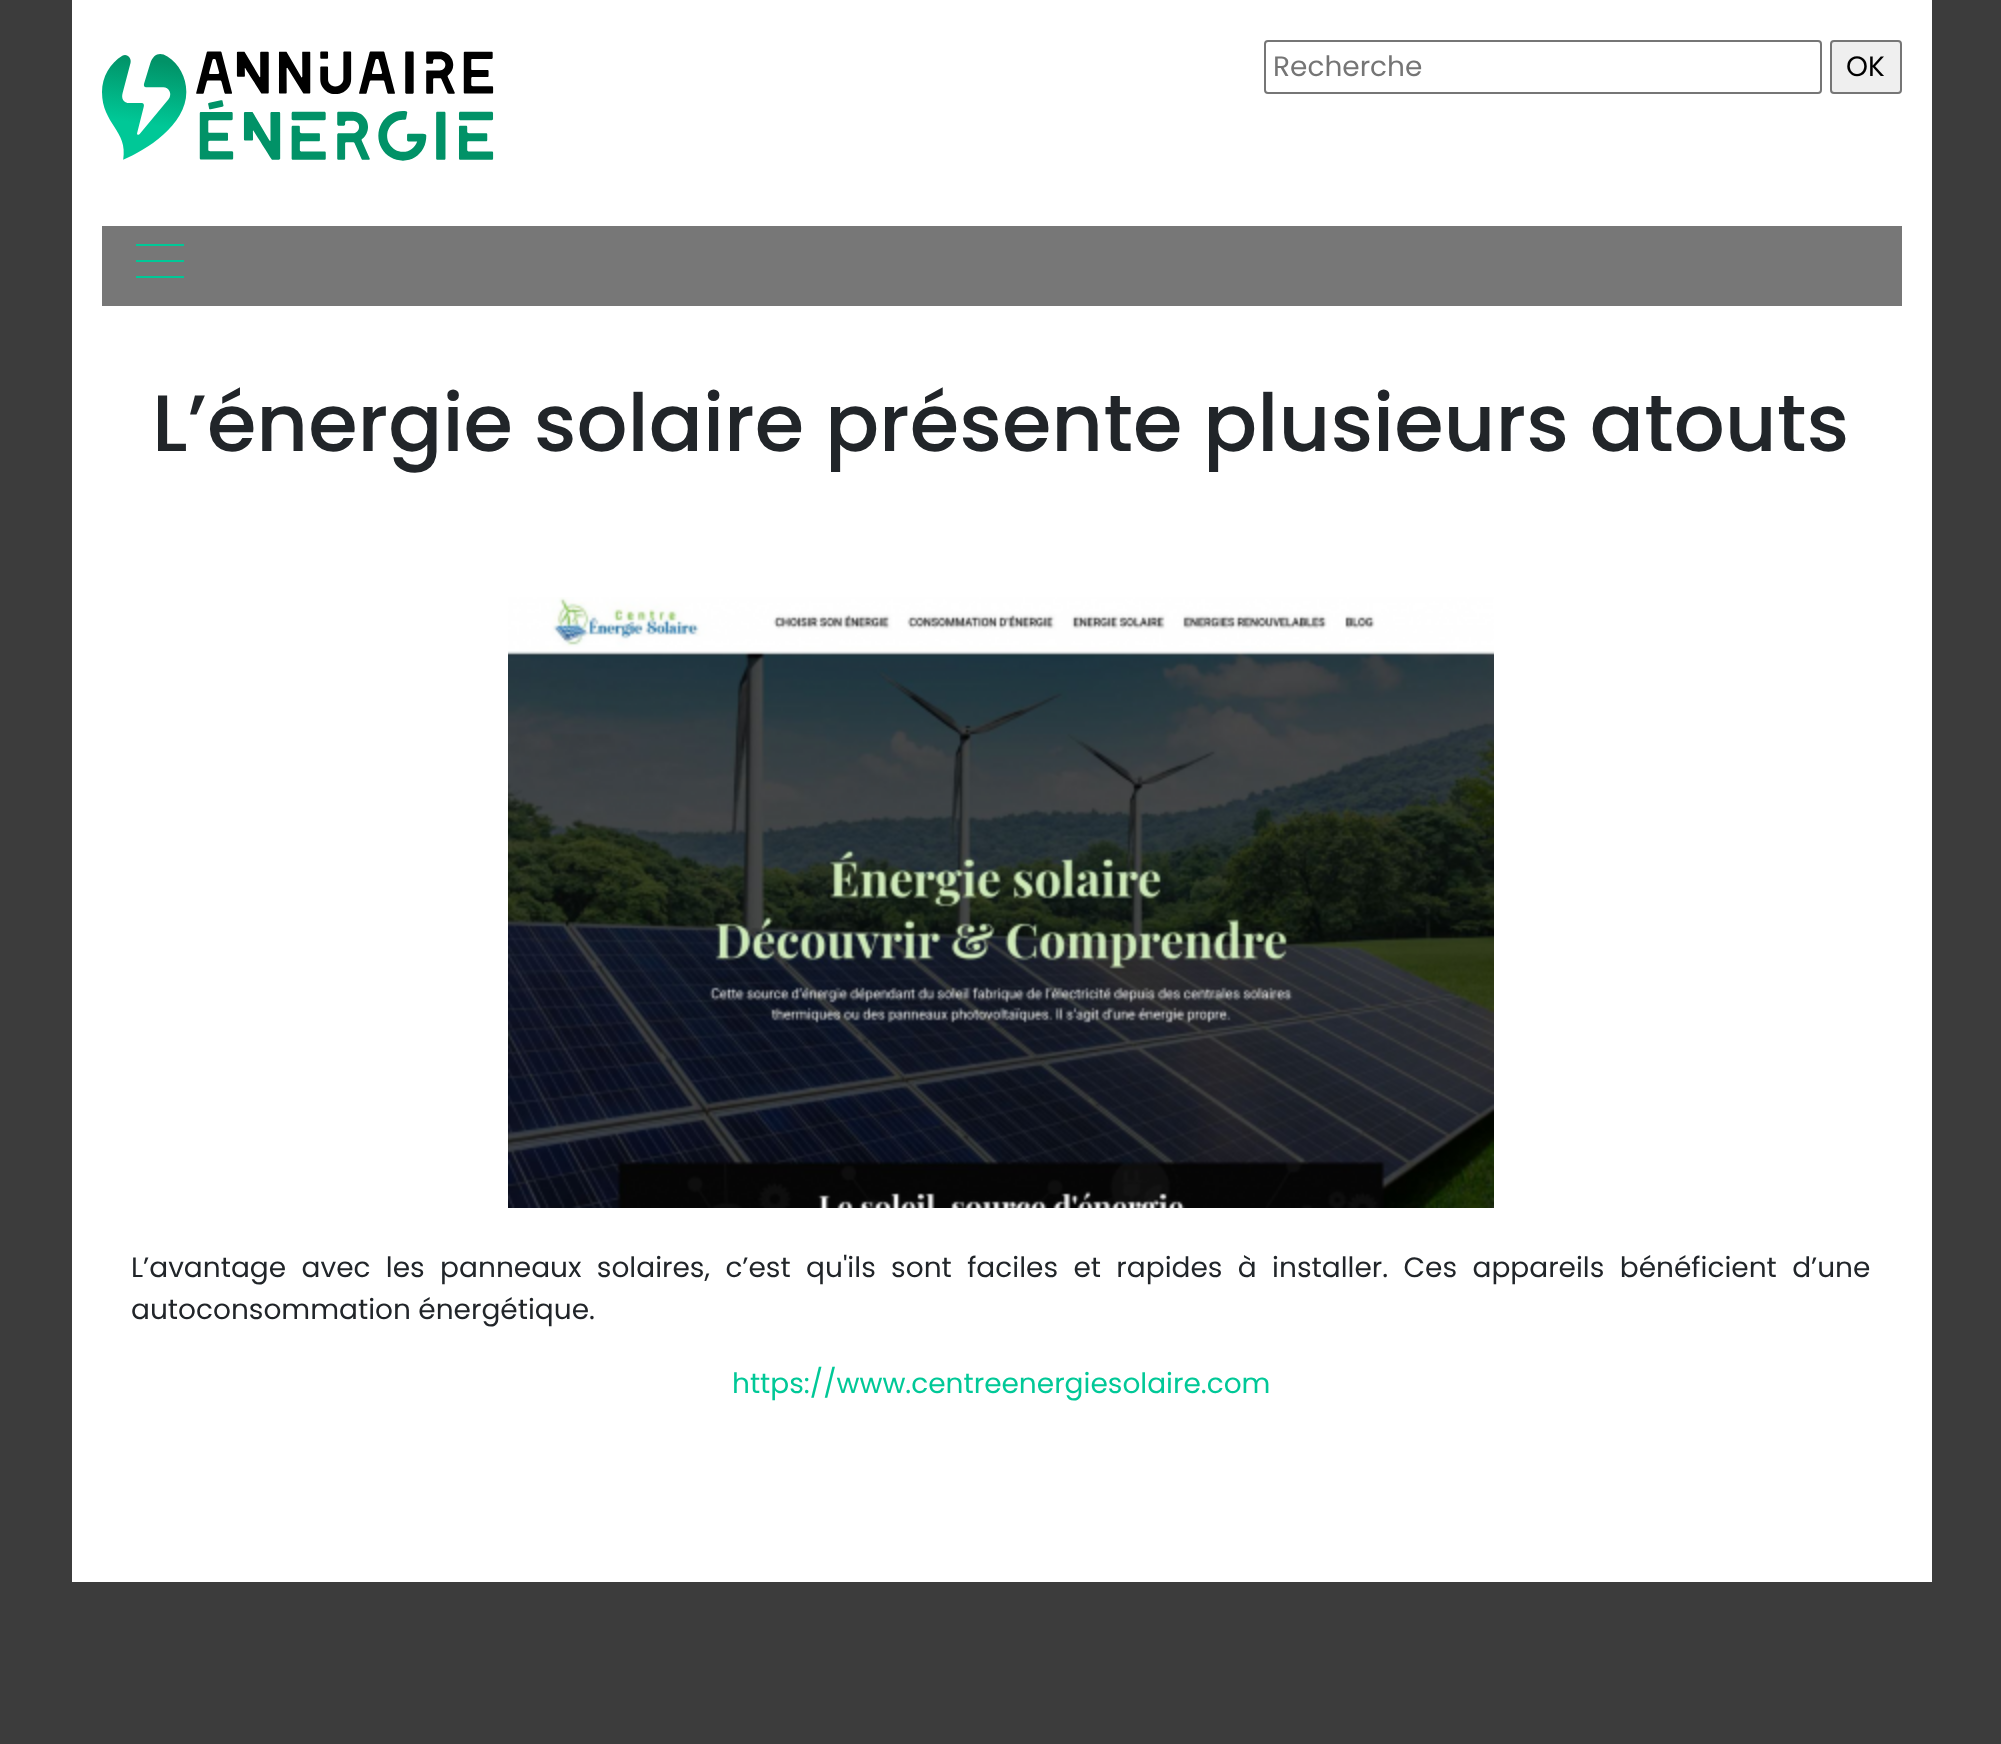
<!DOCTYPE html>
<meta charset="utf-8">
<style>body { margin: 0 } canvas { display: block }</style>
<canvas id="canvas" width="2001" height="1744"></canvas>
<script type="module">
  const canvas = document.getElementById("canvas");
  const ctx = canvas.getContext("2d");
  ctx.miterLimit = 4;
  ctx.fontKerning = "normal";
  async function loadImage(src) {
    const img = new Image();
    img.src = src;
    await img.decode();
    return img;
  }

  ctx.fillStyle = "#3c3c3c";
  ctx.fillRect(0, 0, 2001, 1744);
  ctx.fillStyle = "#ffffff";
  ctx.fillRect(72, 0, 1860, 1582);
  ctx.drawImage(await loadImage("img1.png"), 102, 51, 392, 110);
  ctx.beginPath();
  ctx.roundRect(1265, 41, 556, 52, 3);
  ctx.strokeStyle = "#767676";
  ctx.lineWidth = 2;
  ctx.stroke();
  ctx.font = "28px Poppins";
  ctx.fillStyle = "#757575";
  ctx.fillText("Recherche", 1273, 76);
  ctx.fillStyle = "#efefef";
  ctx.beginPath();
  ctx.roundRect(1831, 41, 70, 52, 3);
  ctx.fill();
  ctx.stroke();
  ctx.fillStyle = "#000000";
  ctx.fillText("OK", 1846, 76);
  ctx.fillStyle = "#777777";
  ctx.fillRect(102, 226, 1800, 80);
  ctx.fillStyle = "#00c897";
  ctx.fillRect(136, 244, 48, 2);
  ctx.fillRect(136, 260, 48, 2);
  ctx.fillRect(136, 276, 48, 2);
  ctx.font = "500 80px Poppins";
  ctx.fillStyle = "#212529";
  ctx.fillText("L’énergie solaire présente plusieurs atouts", 152, 451);
  ctx.drawImage(await loadImage("img2.png"), 508, 597, 986, 611);
  ctx.wordSpacing = "7.9px";
  ctx.font = "28px Poppins";
  ctx.fillText("L’avantage avec les panneaux solaires, c’est qu'ils sont faciles et rapides à installer. Ces appareils bénéficient d’une", 131, 1277);
  ctx.wordSpacing = "0px";
  ctx.fillText("autoconsommation énergétique.", 131, 1319);
  ctx.fillStyle = "#00c897";
  ctx.fillText("https://www.centreenergiesolaire.com", 732, 1393);
</script>
